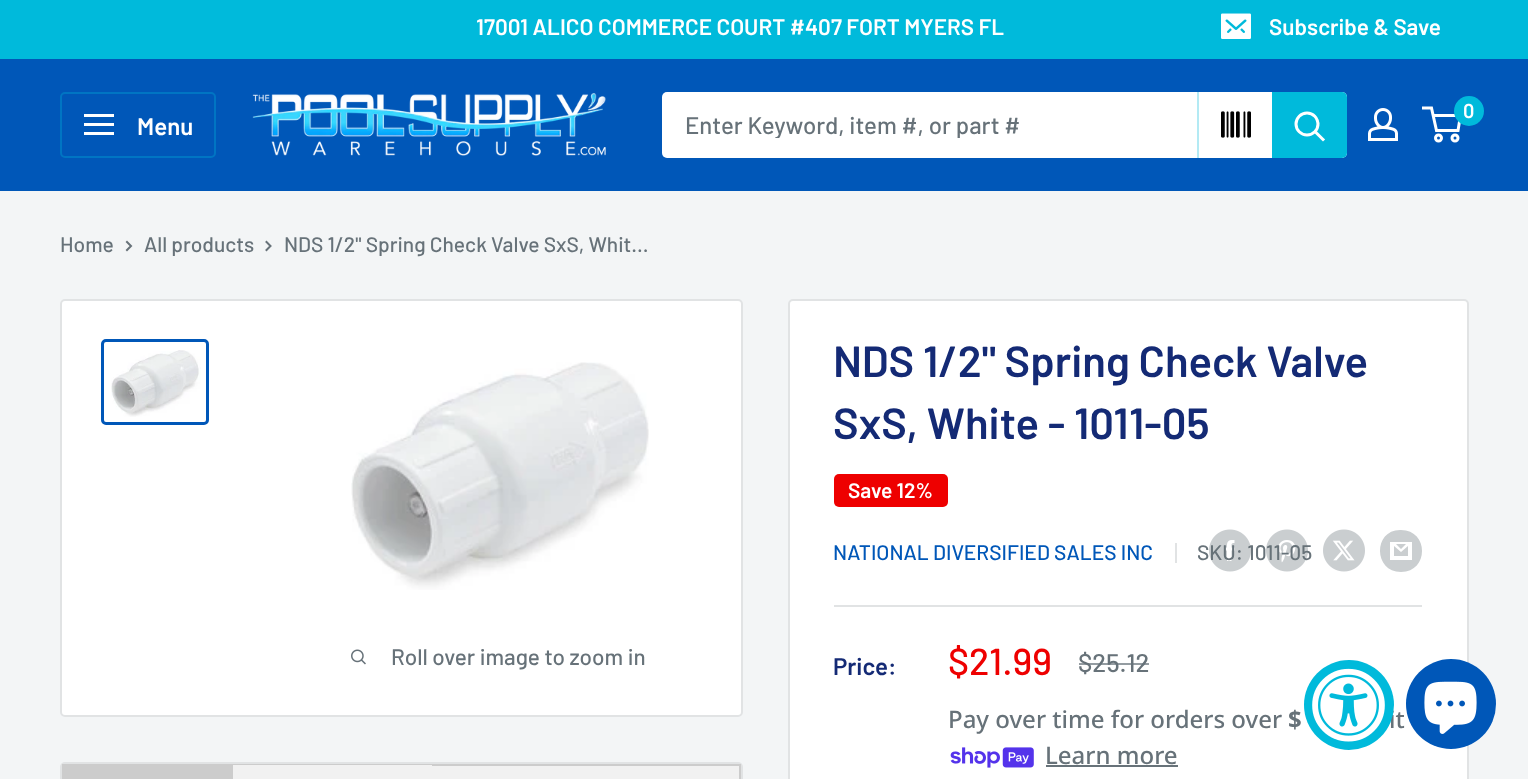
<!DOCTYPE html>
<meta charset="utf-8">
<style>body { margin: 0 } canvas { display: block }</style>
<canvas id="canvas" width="1528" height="779"></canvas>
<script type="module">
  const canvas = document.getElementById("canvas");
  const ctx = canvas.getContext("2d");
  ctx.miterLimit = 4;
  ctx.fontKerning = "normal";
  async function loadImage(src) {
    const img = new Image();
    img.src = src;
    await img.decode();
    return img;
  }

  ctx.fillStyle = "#f3f5f6";
  ctx.fillRect(0, 0, 1528, 779);
  ctx.fillStyle = "#00badb";
  ctx.fillRect(0, 0, 1528, 59);
  ctx.font = "600 22.5px Barlow";
  ctx.fillStyle = "#ffffff";
  ctx.fillText("17001 ALICO COMMERCE COURT #407 FORT MYERS FL", 476, 35);
  ctx.drawImage(await loadImage("img1.png"), 1221, 13, 30, 26);
  ctx.fillText("Subscribe & Save", 1269, 35);
  ctx.fillStyle = "#0057b8";
  ctx.fillRect(0, 59, 1528, 132);
  ctx.drawImage(await loadImage("img2.png"), 252, 93, 354, 63);
  ctx.drawImage(await loadImage("img3.png"), 1368, 108, 30, 33);
  ctx.beginPath();
  ctx.arc(1438.5, 138, 3, 0, Math.PI * 2);
  ctx.strokeStyle = "#ffffff";
  ctx.lineWidth = 3;
  ctx.stroke();
  ctx.beginPath();
  ctx.arc(1455, 138, 3, 0, Math.PI * 2);
  ctx.stroke();
  ctx.beginPath();
  ctx.moveTo(1433, 115.5);
  ctx.lineTo(1460.5, 115.5);
  ctx.lineTo(1458, 130.5);
  ctx.lineTo(1436.5, 130.5);
  ctx.lineTo(1431.5, 108);
  ctx.lineTo(1422, 108);
  ctx.stroke();
  ctx.fillStyle = "#00badb";
  ctx.beginPath();
  ctx.arc(1469, 111, 15, 0, Math.PI * 2);
  ctx.fill();
  ctx.font = "600 20px Barlow";
  ctx.fillStyle = "#ffffff";
  ctx.fillText("0", 1463, 118);
  ctx.beginPath();
  ctx.roundRect(61, 93, 154, 64, 4);
  ctx.strokeStyle = "#0075c3";
  ctx.lineWidth = 2;
  ctx.stroke();
  ctx.drawImage(await loadImage("img4.png"), 84, 114, 30, 21);
  ctx.font = "600 24px Barlow";
  ctx.fillText("Menu", 137, 135);
  ctx.beginPath();
  ctx.roundRect(662, 92, 685, 66, 5);
  ctx.fill();
  ctx.save();
  ctx.beginPath();
  ctx.rect(684, 110, 491, 28);
  ctx.clip();
  ctx.font = "500 24px Barlow";
  ctx.fillStyle = "#677279";
  ctx.fillText("Enter Keyword, item #, or part #", 685, 134);
  ctx.restore();
  ctx.fillStyle = "#b3eaf4";
  ctx.fillRect(1197, 92, 2, 66);
  ctx.drawImage(await loadImage("img5.png"), 1221, 111, 30, 27);
  ctx.fillStyle = "#00badb";
  ctx.beginPath();
  ctx.roundRect(1272, 92, 75, 66, [0, 5, 5, 0]);
  ctx.fill();
  ctx.beginPath();
  ctx.moveTo(1323, 139.5);
  ctx.lineTo(1315.5, 132);
  ctx.strokeStyle = "#ffffff";
  ctx.lineWidth = 3;
  ctx.lineCap = "square";
  ctx.stroke();
  ctx.beginPath();
  ctx.arc(1307, 124, 11, 0, Math.PI * 2);
  ctx.stroke();
  ctx.font = "500 21px Barlow";
  ctx.fillStyle = "#677279";
  ctx.fillText("Home", 60, 252);
  ctx.beginPath();
  ctx.moveTo(127, 242);
  ctx.lineTo(131, 246);
  ctx.lineTo(127, 250);
  ctx.strokeStyle = "#677279";
  ctx.lineWidth = 2;
  ctx.stroke();
  ctx.fillText("All products", 144, 252);
  ctx.beginPath();
  ctx.moveTo(266.5, 242);
  ctx.lineTo(270.5, 246);
  ctx.lineTo(266.5, 250);
  ctx.stroke();
  ctx.fillText("NDS 1/2\" Spring Check Valve SxS, Whit...", 284, 252);
  ctx.fillStyle = "#ffffff";
  ctx.beginPath();
  ctx.roundRect(61, 300, 681, 416, 4);
  ctx.fill();
  ctx.strokeStyle = "#e1e3e4";
  ctx.stroke();
  ctx.beginPath();
  ctx.roundRect(102.5, 340.5, 105, 83, 3.5);
  ctx.strokeStyle = "#0057b8";
  ctx.lineWidth = 3;
  ctx.stroke();
  ctx.drawImage(await loadImage("img6.png"), 111, 350, 90, 67);
  ctx.drawImage(await loadImage("img7.png"), 351, 362, 298, 228);
  ctx.drawImage(await loadImage("img8.png"), 351, 649, 15, 16);
  ctx.font = "500 22.5px Barlow";
  ctx.fillStyle = "#677279";
  ctx.fillText("Roll over image to zoom in", 391, 665);
  ctx.fillStyle = "#ffffff";
  ctx.beginPath();
  ctx.roundRect(789, 300, 679, 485, 4);
  ctx.fill();
  ctx.strokeStyle = "#e1e3e4";
  ctx.lineWidth = 2;
  ctx.stroke();
  ctx.font = "600 43.5px Barlow";
  ctx.fillStyle = "#142a75";
  ctx.fillText("NDS 1/2\" Spring Check Valve", 833, 377);
  ctx.fillText("SxS, White - 1011-05", 833, 439);
  ctx.fillStyle = "#ee0000";
  ctx.beginPath();
  ctx.roundRect(834, 474, 114, 33, 5);
  ctx.fill();
  ctx.font = "600 21px Barlow";
  ctx.fillStyle = "#ffffff";
  ctx.fillText("Save 12%", 848, 498);
  ctx.font = "500 21px Barlow";
  ctx.fillStyle = "#0057b8";
  ctx.fillText("NATIONAL DIVERSIFIED SALES INC", 833, 560);
  ctx.fillStyle = "#e1e3e4";
  ctx.fillRect(1175, 543, 2, 20);
  ctx.fillStyle = "#677279";
  ctx.fillText("SKU: 1011-05", 1197, 560);
  ctx.drawImage(await loadImage("img9.png"), 1209, 529, 42, 43);
  ctx.drawImage(await loadImage("img10.png"), 1266, 529, 42, 43);
  ctx.drawImage(await loadImage("img11.png"), 1323, 529, 42, 43);
  ctx.fillStyle = "#caced0";
  ctx.beginPath();
  ctx.moveTo(1401, 572);
  ctx.bezierCurveTo(1373, 572, 1373, 529, 1401, 530);
  ctx.bezierCurveTo(1429, 530, 1429, 572, 1401, 572);
  ctx.closePath();
  ctx.moveTo(1396, 544);
  ctx.lineTo(1406, 544);
  ctx.lineTo(1401, 549);
  ctx.closePath();
  ctx.moveTo(1408, 546);
  ctx.lineTo(1408, 556);
  ctx.lineTo(1394, 556);
  ctx.lineTo(1394, 546);
  ctx.lineTo(1401, 552);
  ctx.closePath();
  ctx.moveTo(1412, 542);
  ctx.lineTo(1390, 542);
  ctx.lineTo(1390, 560);
  ctx.lineTo(1412, 560);
  ctx.closePath();
  ctx.fill();
  ctx.fillStyle = "#e1e3e4";
  ctx.fillRect(834, 605, 588, 2);
  ctx.font = "600 24px Barlow";
  ctx.fillStyle = "#142a75";
  ctx.fillText("Price:", 833, 675);
  ctx.font = "500 37.5px Barlow";
  ctx.fillStyle = "#ee0000";
  ctx.fillText("$21.99", 948, 675);
  ctx.font = "500 25.5px Barlow";
  ctx.fillStyle = "#677279";
  ctx.fillText("$25.12", 1078, 672);
  ctx.fillStyle = "rgba(103, 114, 121, 0.7)";
  ctx.fillRect(1079, 663, 70, 2);
  ctx.font = "500 24px Noto Sans";
  ctx.fillStyle = "#677279";
  ctx.fillText("Pay over time for orders over", 948, 728);
  ctx.font = "bold 24px Noto Sans";
  ctx.fillText("$", 1288, 728);
  ctx.font = "500 24px Noto Sans";
  ctx.fillText("it", 1389, 728);
  ctx.drawImage(await loadImage("img12.png"), 950, 747, 84, 21);
  ctx.fillText("Learn more", 1045, 764);
  ctx.fillRect(1046, 765, 132, 2);
  ctx.beginPath();
  ctx.roundRect(61, 763, 681, 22, 4);
  ctx.stroke();
  ctx.fillStyle = "#f1f1f1";
  ctx.fillRect(432, 766, 307, 13);
  ctx.strokeStyle = "#cccccc";
  ctx.strokeRect(63, 765, 677, 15);
  ctx.fillStyle = "#cccccc";
  ctx.fillRect(64, 766, 169, 13);
  ctx.fillStyle = "#f1f1f1";
  ctx.fillRect(233, 765, 199, 14);
  ctx.fillStyle = "#0057b8";
  ctx.beginPath();
  ctx.arc(1451, 704, 45, 0, Math.PI * 2);
  ctx.fill();
  ctx.drawImage(await loadImage("img13.png"), 1424, 681, 53, 53);
  ctx.fillStyle = "#00badb";
  ctx.beginPath();
  ctx.arc(1349, 705, 45, 0, Math.PI * 2);
  ctx.fill();
  ctx.drawImage(await loadImage("img14.png"), 1312, 668, 73, 74);
</script>
